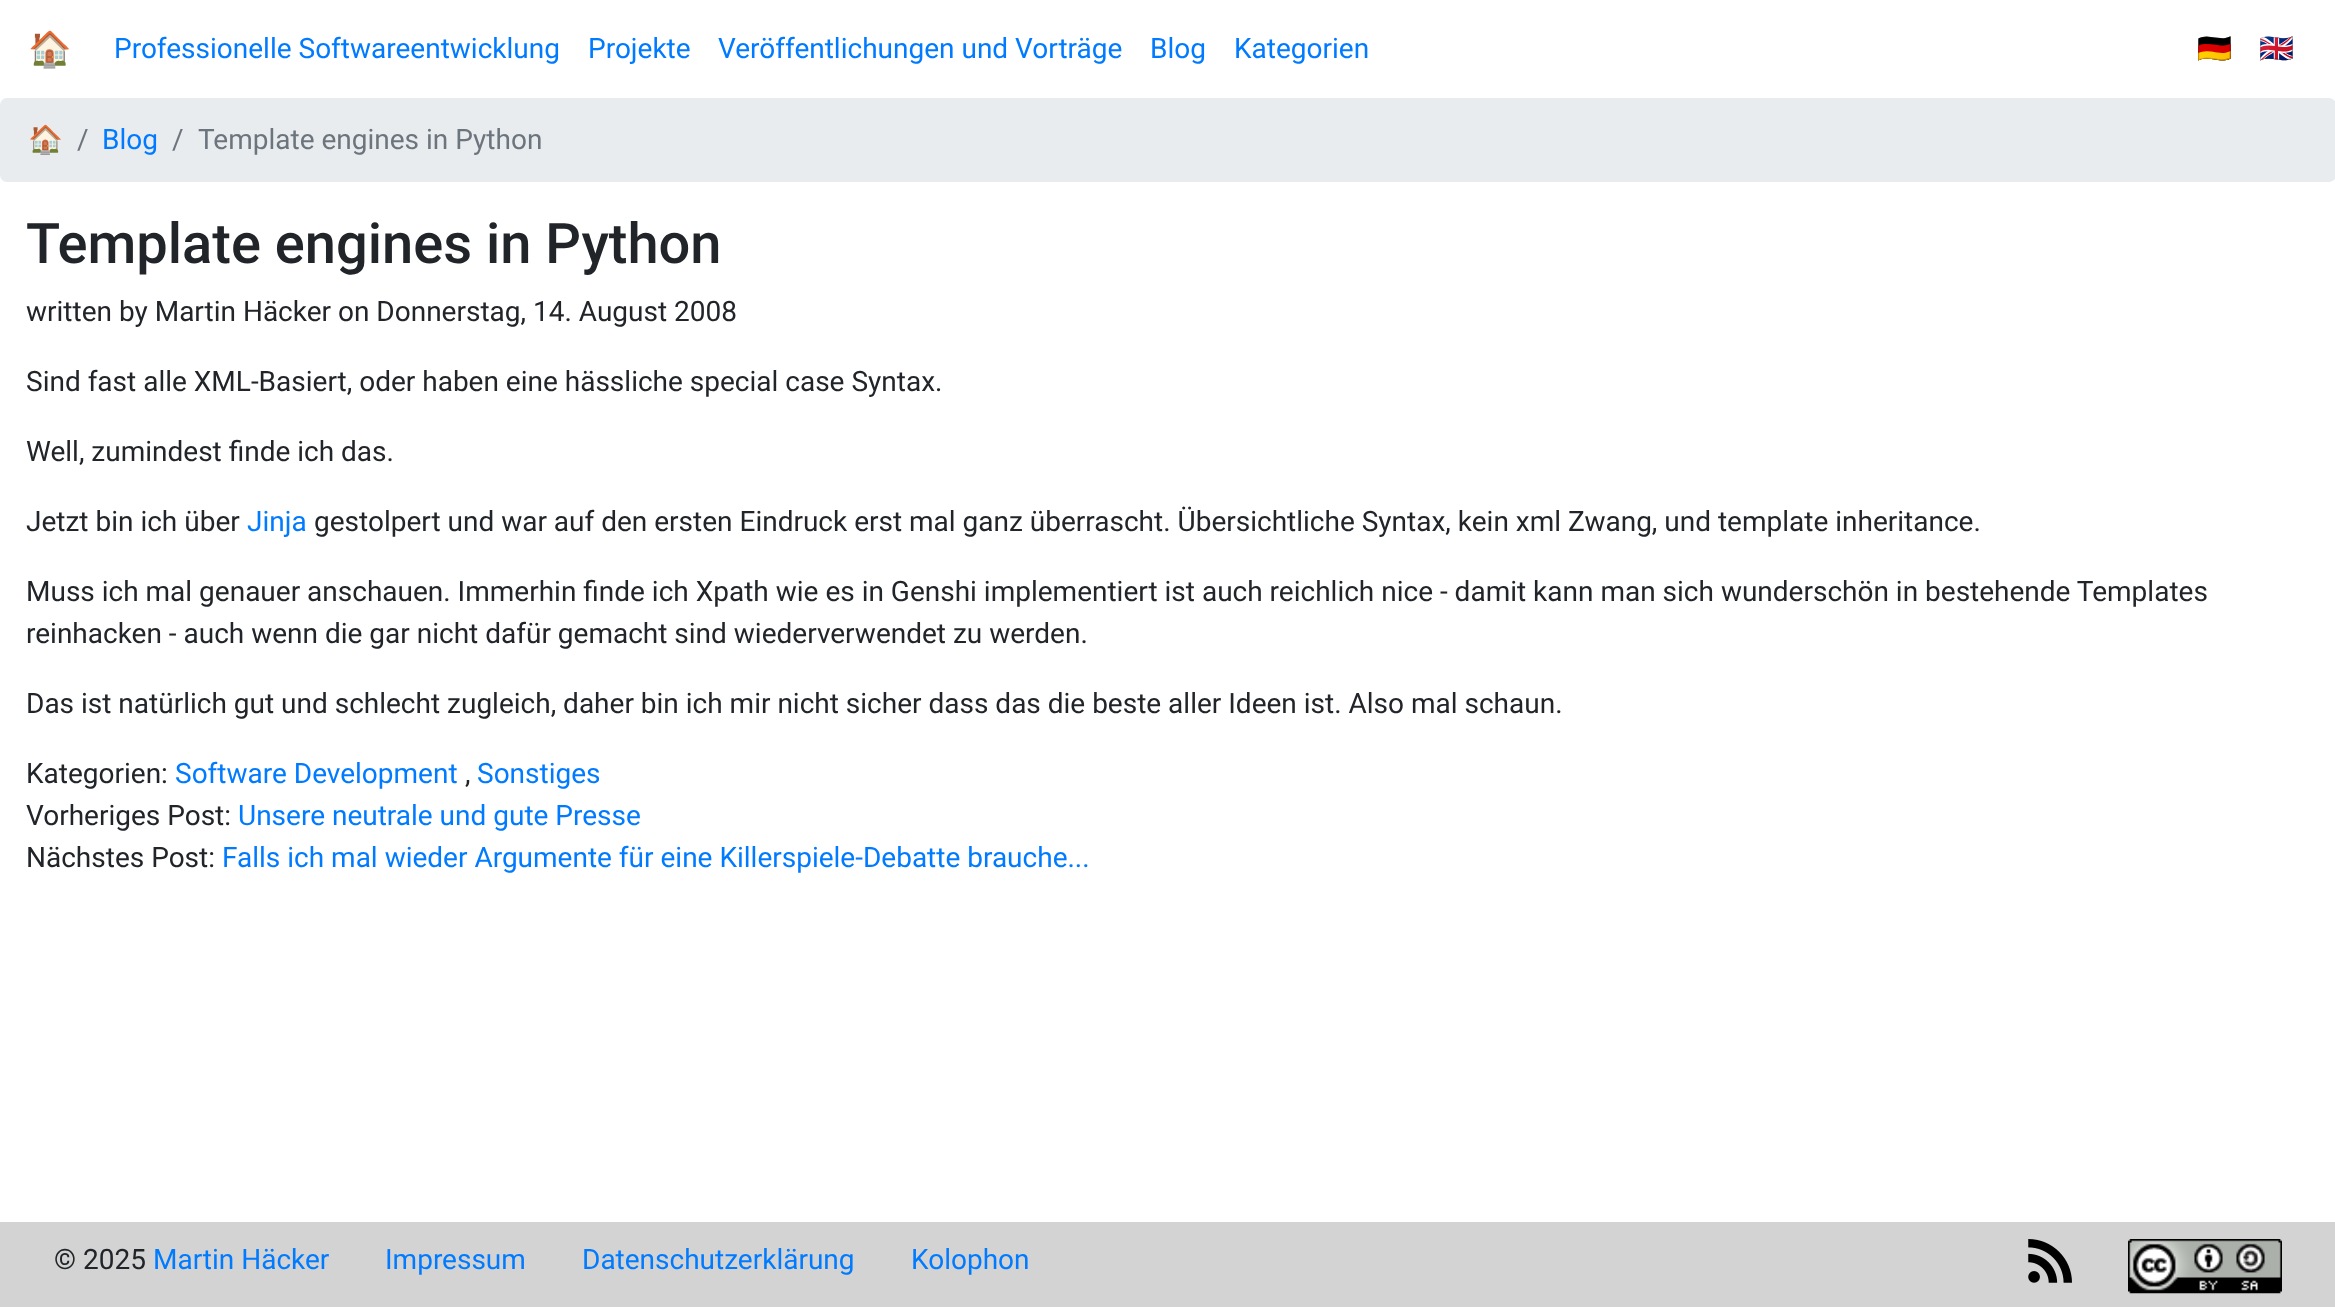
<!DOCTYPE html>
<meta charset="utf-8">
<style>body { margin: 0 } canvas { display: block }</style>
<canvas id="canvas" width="2335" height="1307"></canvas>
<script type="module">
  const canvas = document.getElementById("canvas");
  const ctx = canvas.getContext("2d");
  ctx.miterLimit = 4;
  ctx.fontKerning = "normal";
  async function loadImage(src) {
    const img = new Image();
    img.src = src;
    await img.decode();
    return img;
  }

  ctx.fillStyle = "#ffffff";
  ctx.fillRect(0, 0, 2335, 1307);
  ctx.font = "35px Noto Color Emoji";
  ctx.fillStyle = "#007bff";
  ctx.fillText("🏠", 28, 61);
  ctx.font = "28px Roboto";
  ctx.fillText("Professionelle Softwareentwicklung", 114, 58);
  ctx.fillText("Projekte", 588, 58);
  ctx.fillText("Veröffentlichungen und Vorträge", 718, 58);
  ctx.fillText("Blog", 1150, 58);
  ctx.fillText("Kategorien", 1234, 58);
  ctx.font = "28px Noto Color Emoji";
  ctx.fillText("🇩🇪", 2197, 58);
  ctx.fillText("🇬🇧", 2259, 58);
  ctx.fillStyle = "#e9ecef";
  ctx.beginPath();
  ctx.roundRect(0, 98, 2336, 84, 7);
  ctx.fill();
  ctx.fillStyle = "#007bff";
  ctx.fillText("🏠", 28, 149);
  ctx.font = "28px Roboto";
  ctx.fillStyle = "#6c757d";
  ctx.fillText("/", 77, 149);
  ctx.fillStyle = "#007bff";
  ctx.fillText("Blog", 102, 149);
  ctx.fillStyle = "#6c757d";
  ctx.fillText("/", 172, 149);
  ctx.fillText("Template engines in Python", 198, 149);
  ctx.font = "500 56px Roboto";
  ctx.fillStyle = "#212529";
  ctx.fillText("Template engines in Python", 26, 263);
  ctx.font = "28px Roboto";
  ctx.fillText("written by Martin Häcker on Donnerstag, 14. August 2008", 26, 321);
  ctx.fillText("Sind fast alle XML-Basiert, oder haben eine hässliche special case Syntax.", 26, 391);
  ctx.fillText("Well, zumindest finde ich das.", 26, 461);
  ctx.fillText("Jetzt bin ich über", 26, 531);
  ctx.fillStyle = "#007bff";
  ctx.fillText("Jinja", 247, 531);
  ctx.fillStyle = "#212529";
  ctx.fillText("gestolpert und war auf den ersten Eindruck erst mal ganz überrascht. Übersichtliche Syntax, kein xml Zwang, und template inheritance.", 314, 531);
  ctx.fillText("Muss ich mal genauer anschauen. Immerhin finde ich Xpath wie es in Genshi implementiert ist auch reichlich nice - damit kann man sich wunderschön in bestehende Templates", 26, 601);
  ctx.fillText("reinhacken - auch wenn die gar nicht dafür gemacht sind wiederverwendet zu werden.", 26, 643);
  ctx.fillText("Das ist natürlich gut und schlecht zugleich, daher bin ich mir nicht sicher dass das die beste aller Ideen ist. Also mal schaun.", 26, 713);
  ctx.fillText("Kategorien:", 26, 783);
  ctx.fillStyle = "#007bff";
  ctx.fillText("Software Development", 175, 783);
  ctx.fillStyle = "#212529";
  ctx.fillText(",", 465, 783);
  ctx.fillStyle = "#007bff";
  ctx.fillText("Sonstiges", 477, 783);
  ctx.fillStyle = "#212529";
  ctx.fillText("Vorheriges Post:", 26, 825);
  ctx.fillStyle = "#007bff";
  ctx.fillText("Unsere neutrale und gute Presse", 238, 825);
  ctx.fillStyle = "#212529";
  ctx.fillText("Nächstes Post:", 26, 867);
  ctx.fillStyle = "#007bff";
  ctx.fillText("Falls ich mal wieder Argumente für eine Killerspiele-Debatte brauche...", 222, 867);
  ctx.fillStyle = "#d3d3d3";
  ctx.fillRect(0, 1222, 2335, 85);
  ctx.fillStyle = "#212529";
  ctx.fillText("© 2025", 54, 1269);
  ctx.fillStyle = "#007bff";
  ctx.fillText("Martin Häcker", 153, 1269);
  ctx.fillText("Impressum", 385, 1269);
  ctx.fillText("Datenschutzerklärung", 582, 1269);
  ctx.fillText("Kolophon", 911, 1269);
  ctx.drawImage(await loadImage("img1.png"), 2028, 1239, 44, 44);
  ctx.drawImage(await loadImage("img2.png"), 2128, 1239, 154, 55);
</script>
